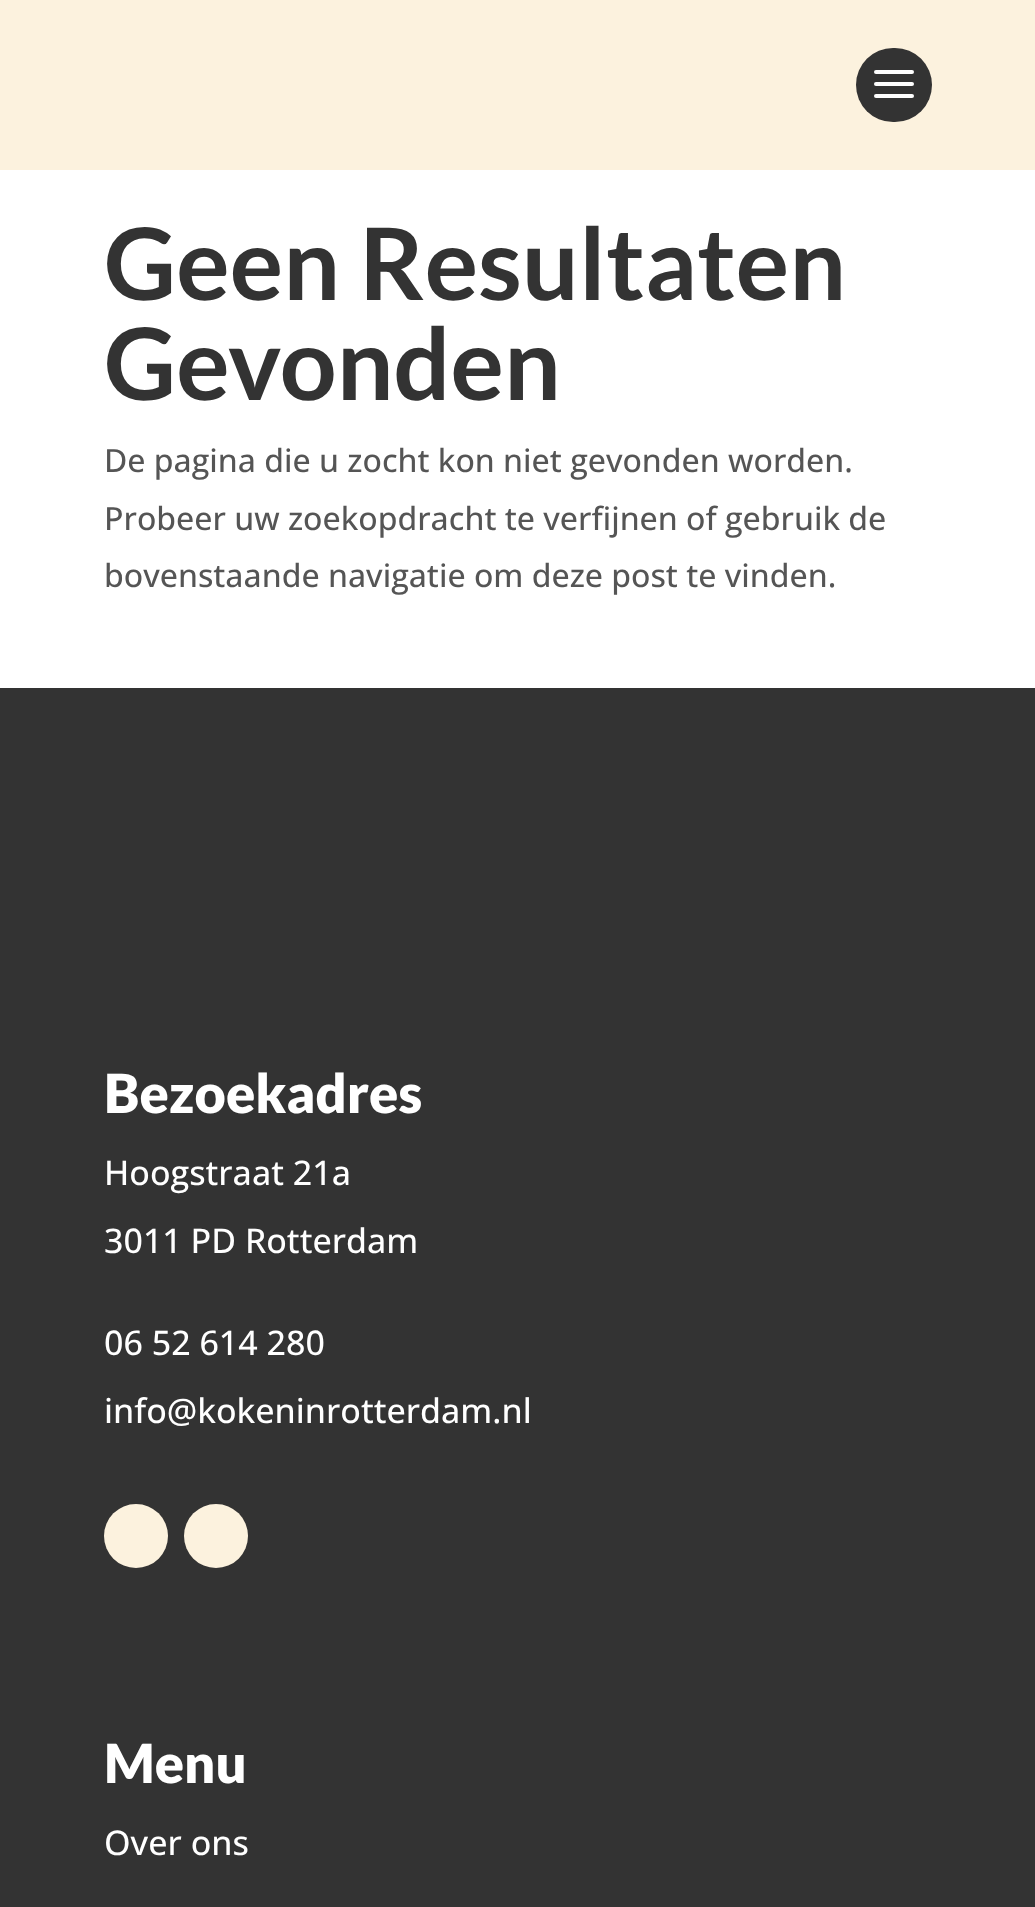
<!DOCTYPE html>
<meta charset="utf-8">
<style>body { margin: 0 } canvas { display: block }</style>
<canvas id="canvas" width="1035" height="1907"></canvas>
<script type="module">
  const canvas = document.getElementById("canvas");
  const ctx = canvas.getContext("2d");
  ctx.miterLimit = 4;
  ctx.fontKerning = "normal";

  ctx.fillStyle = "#ffffff";
  ctx.fillRect(0, 0, 1035, 1907);
  ctx.fillStyle = "#fcf2de";
  ctx.fillRect(0, 0, 1035, 170);
  ctx.fillStyle = "#333333";
  ctx.beginPath();
  ctx.roundRect(856, 48, 76, 74, 37);
  ctx.fill();
  ctx.fillStyle = "#ffffff";
  ctx.beginPath();
  ctx.roundRect(874, 82, 40, 4, 2);
  ctx.fill();
  ctx.beginPath();
  ctx.roundRect(874, 70, 40, 4, 2);
  ctx.fill();
  ctx.beginPath();
  ctx.roundRect(874, 94, 40, 4, 2);
  ctx.fill();
  ctx.font = "bold 100px Lato";
  ctx.fillStyle = "#333333";
  ctx.fillText("Geen Resultaten", 104, 300);
  ctx.fillText("Gevonden", 104, 400);
  ctx.font = "500 32px Open Sans";
  ctx.fillStyle = "#555555";
  ctx.fillText("De pagina die u zocht kon niet gevonden worden.", 104, 472);
  ctx.fillText("Probeer uw zoekopdracht te verfijnen of gebruik de", 104, 530);
  ctx.fillText("bovenstaande navigatie om deze post te vinden.", 104, 587);
  ctx.fillStyle = "#333333";
  ctx.fillRect(0, 688, 1035, 1219);
  ctx.font = "900 54px Lato";
  ctx.fillStyle = "#ffffff";
  ctx.fillText("Bezoekadres", 104, 1113);
  ctx.font = "500 34px Open Sans";
  ctx.fillText("Hoogstraat 21a", 104, 1185);
  ctx.fillText("3011 PD Rotterdam", 104, 1253);
  ctx.fillText("06 52 614 280", 104, 1355);
  ctx.fillText("info@kokeninrotterdam.nl", 104, 1423);
  ctx.fillStyle = "#fcf2de";
  ctx.beginPath();
  ctx.arc(136, 1536, 32, 0, Math.PI * 2);
  ctx.fill();
  ctx.beginPath();
  ctx.arc(216, 1536, 32, 0, Math.PI * 2);
  ctx.fill();
  ctx.font = "900 54px Lato";
  ctx.fillStyle = "#ffffff";
  ctx.fillText("Menu", 104, 1783);
  ctx.font = "500 34px Open Sans";
  ctx.fillText("Over ons", 104, 1855);
</script>
